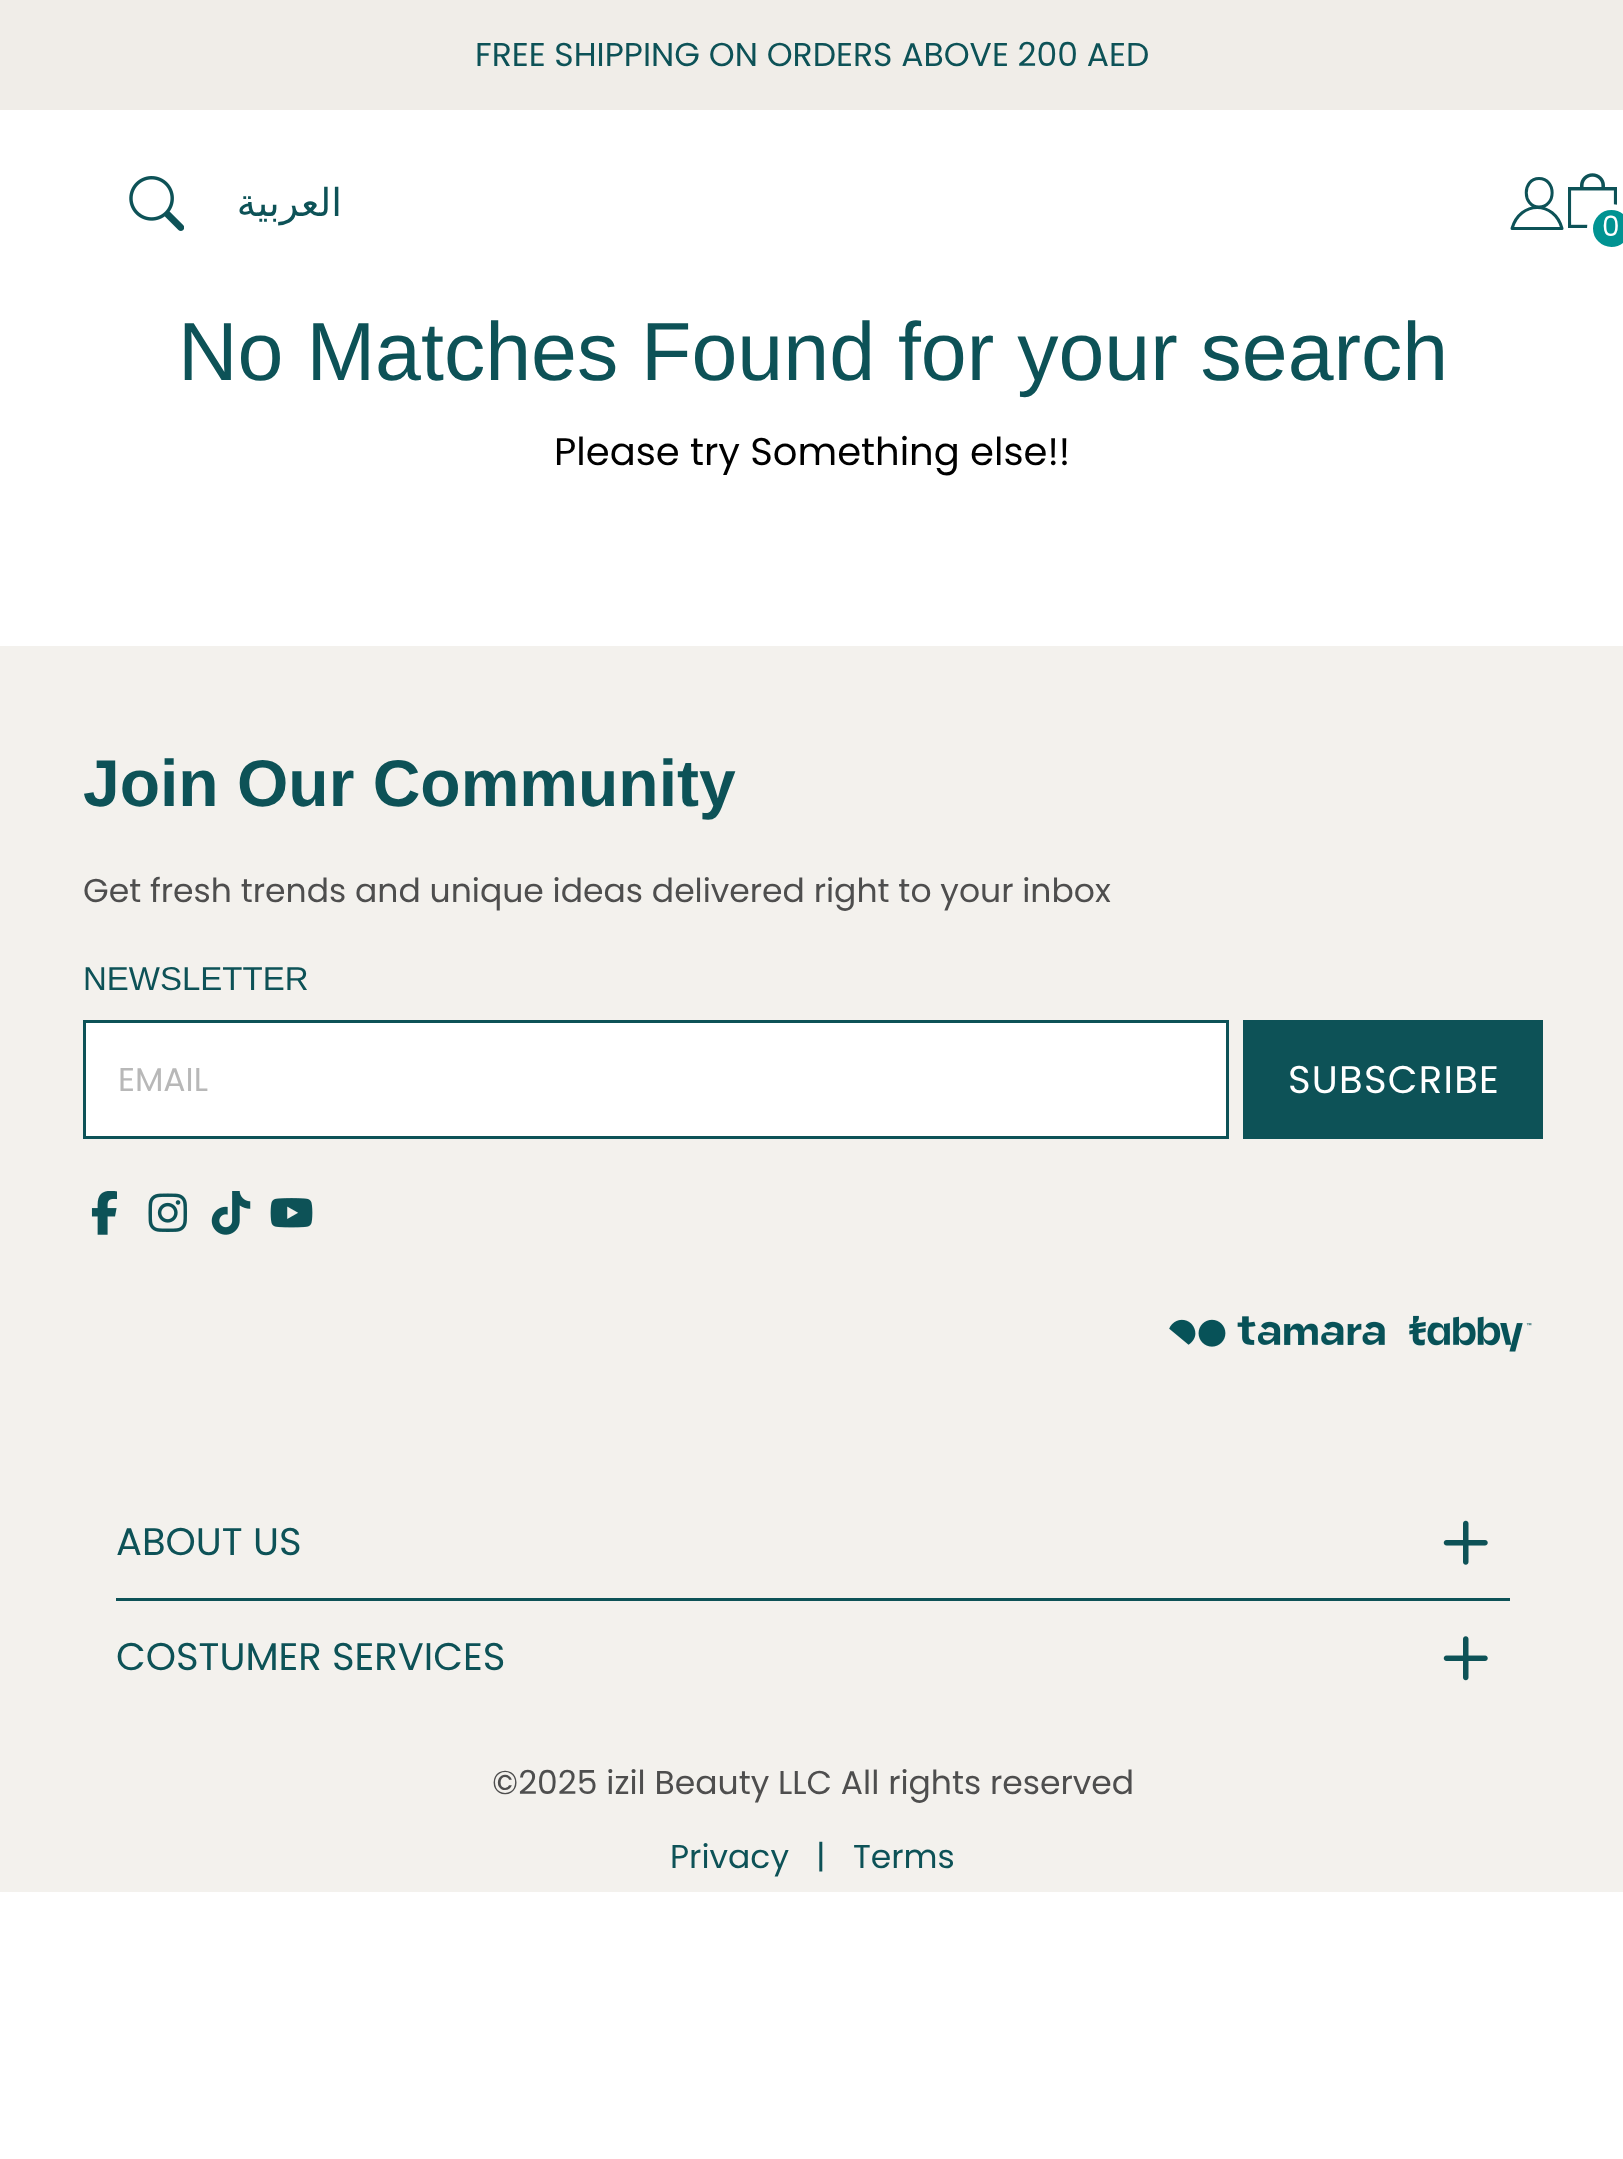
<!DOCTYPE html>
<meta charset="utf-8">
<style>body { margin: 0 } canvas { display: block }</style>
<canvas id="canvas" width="1623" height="2159"></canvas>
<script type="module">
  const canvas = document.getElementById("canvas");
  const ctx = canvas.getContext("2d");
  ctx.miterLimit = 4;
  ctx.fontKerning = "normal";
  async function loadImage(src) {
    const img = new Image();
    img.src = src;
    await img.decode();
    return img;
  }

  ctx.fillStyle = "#ffffff";
  ctx.fillRect(0, 0, 1623, 2159);
  ctx.fillStyle = "#f0ede8";
  ctx.fillRect(0, 0, 1623, 110);
  ctx.font = "33px Poppins";
  ctx.fillStyle = "#0d5257";
  ctx.fillText("FREE SHIPPING ON ORDERS ABOVE 200 AED", 475, 66);
  ctx.drawImage(await loadImage("img1.png"), 129, 176, 55, 55);
  ctx.direction = "rtl";
  ctx.font = "38.5px DejaVu Sans";
  ctx.fillText("العربية", 342, 216);
  ctx.beginPath();
  ctx.moveTo(1562, 228.5);
  ctx.bezierCurveTo(1554.5, 200.5, 1520, 200.5, 1512, 228.5);
  ctx.closePath();
  ctx.moveTo(1539, 207);
  ctx.bezierCurveTo(1556.5, 207, 1556.5, 178.5, 1539, 178.5);
  ctx.bezierCurveTo(1522, 178.5, 1522, 207, 1539, 207);
  ctx.closePath();
  ctx.strokeStyle = "#0d5257";
  ctx.lineWidth = 3;
  ctx.lineCap = "round";
  ctx.lineJoin = "round";
  ctx.stroke();
  ctx.drawImage(await loadImage("img2.png"), 1568, 173, 49, 55);
  ctx.fillStyle = "#019392";
  ctx.beginPath();
  ctx.arc(1611.5, 228.5, 21.5, 0, Math.PI * 2);
  ctx.fill();
  ctx.strokeStyle = "#ffffff";
  ctx.lineWidth = 6;
  ctx.stroke();
  ctx.direction = "ltr";
  ctx.font = "28px Poppins";
  ctx.fillStyle = "#ffffff";
  ctx.fillText("0", 1602, 236);
  ctx.font = "82.5px Liberation Sans";
  ctx.fillStyle = "#0d5257";
  ctx.fillText("No Matches Found for your search", 178, 380);
  ctx.font = "38.5px Poppins";
  ctx.fillStyle = "#000000";
  ctx.fillText("Please try Something else!!", 554, 465);
  ctx.fillStyle = "#f3f1ed";
  ctx.fillRect(0, 646, 1623, 1246);
  ctx.font = "bold 66px Liberation Sans";
  ctx.fillStyle = "#0d5257";
  ctx.fillText("Join Our Community", 83, 806);
  ctx.font = "33px Poppins";
  ctx.fillStyle = "#4e4e4e";
  ctx.fillText("Get fresh trends and unique ideas delivered right to your inbox", 83, 902);
  ctx.font = "33px Liberation Sans";
  ctx.fillStyle = "#0d5257";
  ctx.fillText("NEWSLETTER", 83, 990);
  ctx.fillStyle = "#ffffff";
  ctx.beginPath();
  ctx.rect(84.5, 1021.5, 1143, 116);
  ctx.fill();
  ctx.strokeStyle = "#0d5257";
  ctx.lineWidth = 3;
  ctx.lineJoin = "miter";
  ctx.stroke();
  ctx.font = "33px Poppins";
  ctx.fillStyle = "#b8b8b8";
  ctx.fillText("EMAIL", 118, 1091);
  ctx.fillStyle = "#0d5257";
  ctx.fillRect(1243, 1020, 300, 119);
  ctx.letterSpacing = "1.25px";
  ctx.font = "38.5px Poppins";
  ctx.fillStyle = "#ffffff";
  ctx.fillText("SUBSCRIBE", 1288, 1093);
  ctx.drawImage(await loadImage("img3.png"), 91, 1191, 26, 44);
  ctx.drawImage(await loadImage("img4.png"), 148, 1193, 39, 39);
  ctx.drawImage(await loadImage("img5.png"), 211, 1191, 40, 44);
  ctx.drawImage(await loadImage("img6.png"), 270, 1198, 43, 30);
  ctx.drawImage(await loadImage("img7.png"), 1169, 1315, 363, 37);
  ctx.fillStyle = "#0d5257";
  ctx.fillRect(116, 1598, 1394, 3);
  ctx.letterSpacing = "0px";
  ctx.fillText("ABOUT US", 116, 1555);
  ctx.drawImage(await loadImage("img8.png"), 1443, 1520, 45, 45);
  ctx.fillText("COSTUMER SERVICES", 116, 1670);
  ctx.drawImage(await loadImage("img9.png"), 1443, 1636, 45, 45);
  ctx.font = "33px Poppins";
  ctx.fillStyle = "#4e4e4e";
  ctx.fillText("©2025 izil Beauty LLC All rights reserved", 492, 1794);
  ctx.fillStyle = "#0d5257";
  ctx.fillText("Privacy", 670, 1868);
  ctx.fillText("|", 816, 1868);
  ctx.fillText("Terms", 853, 1868);
</script>
